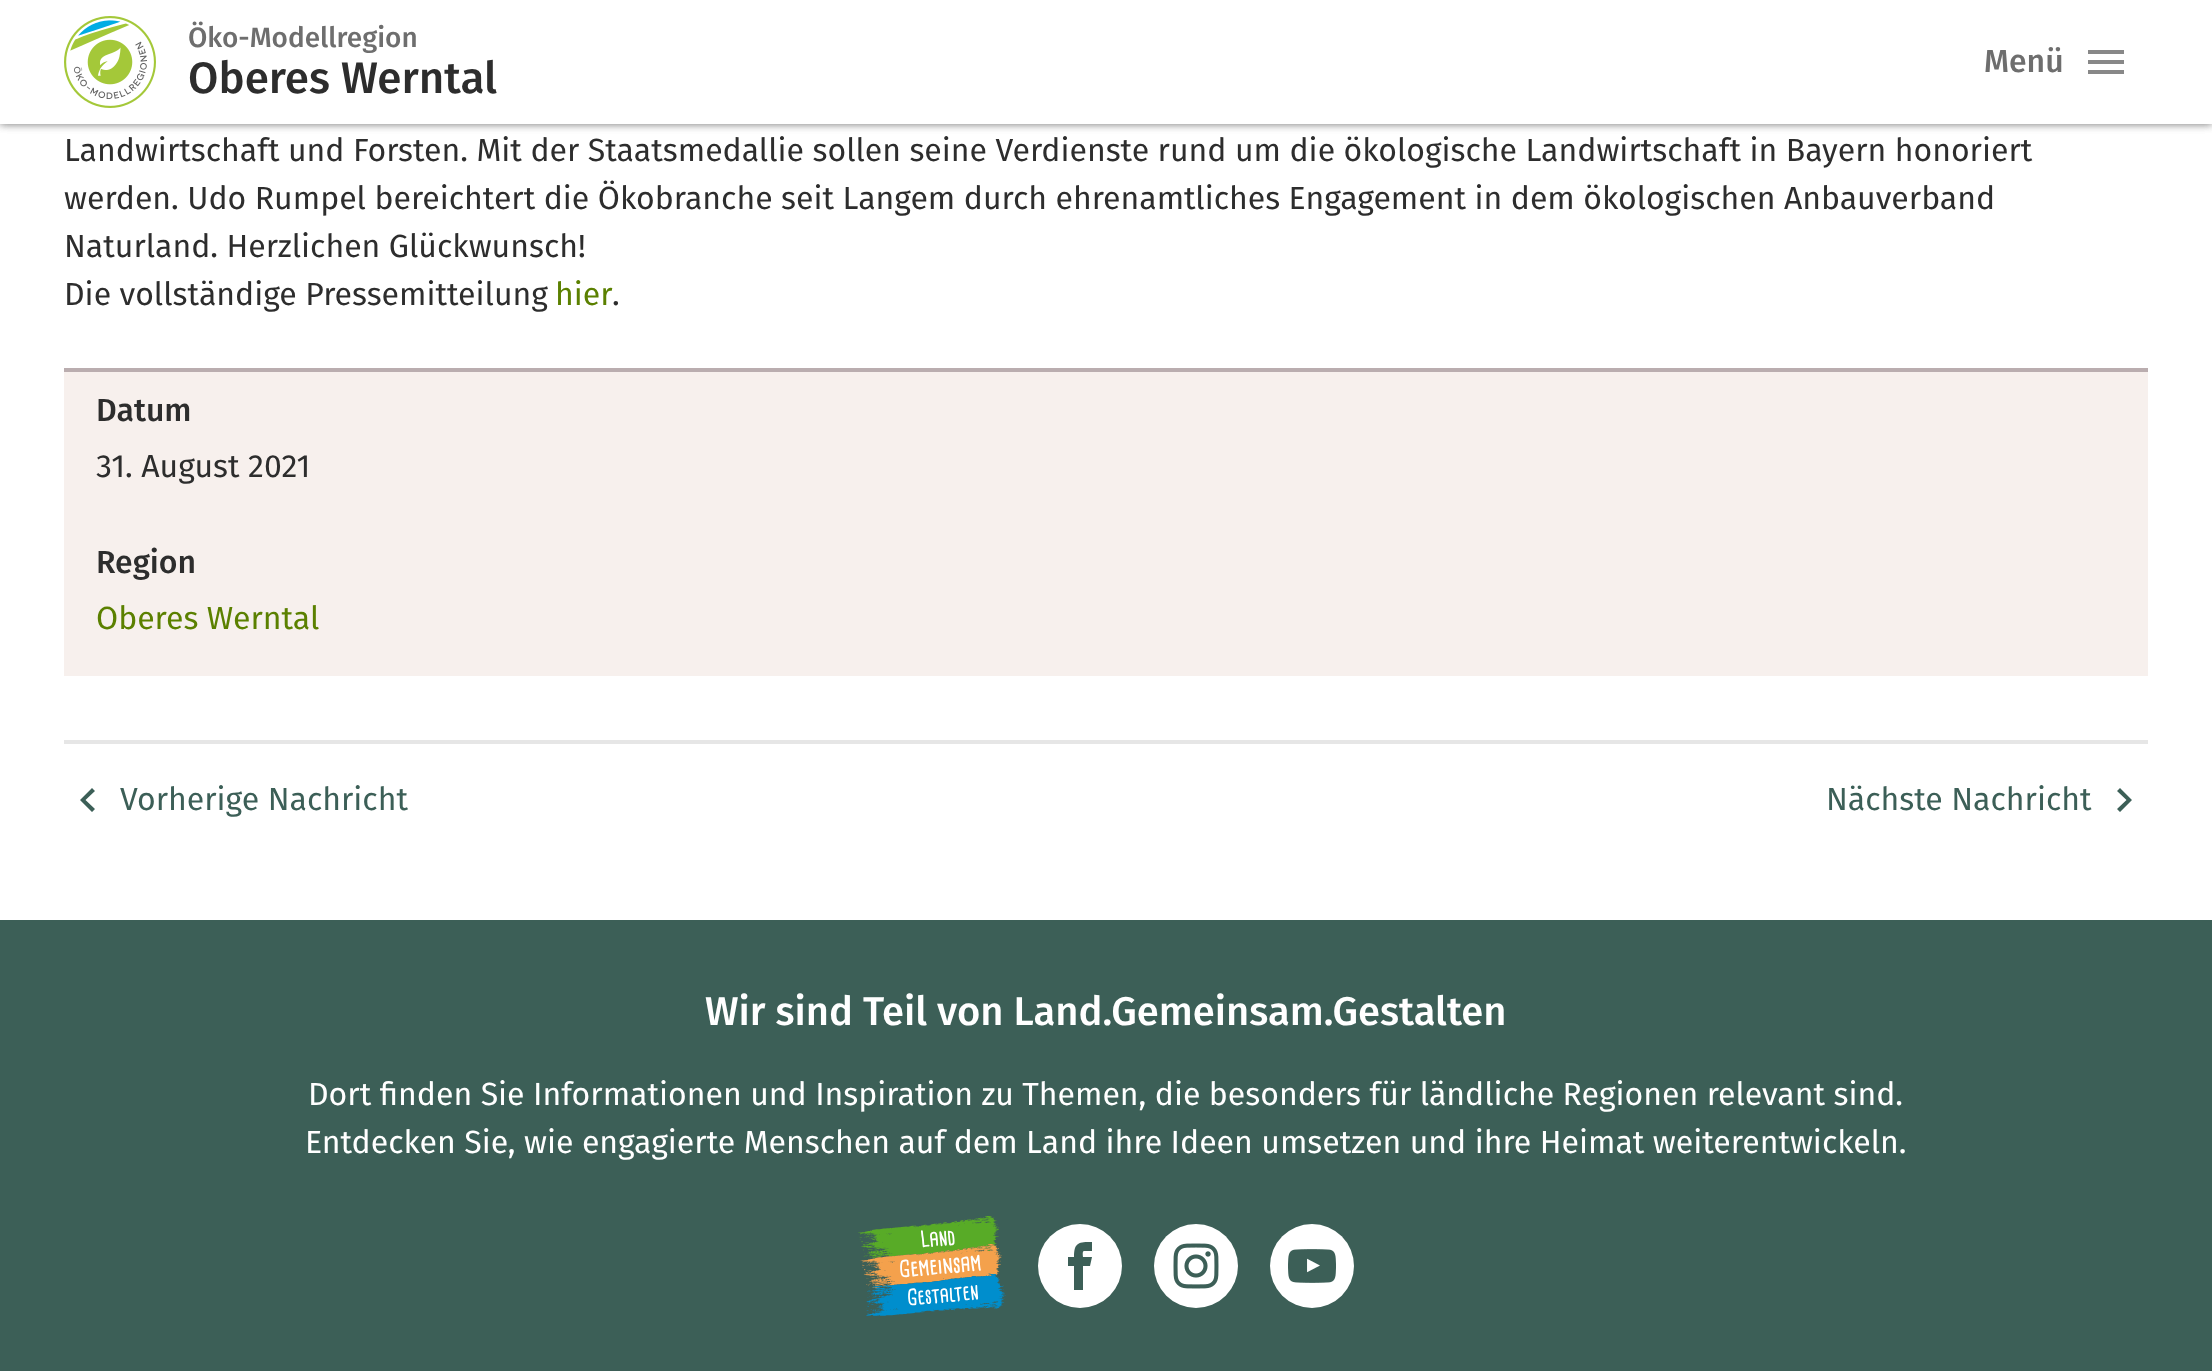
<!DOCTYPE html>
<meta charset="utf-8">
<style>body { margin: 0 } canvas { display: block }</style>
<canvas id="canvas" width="2212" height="1371"></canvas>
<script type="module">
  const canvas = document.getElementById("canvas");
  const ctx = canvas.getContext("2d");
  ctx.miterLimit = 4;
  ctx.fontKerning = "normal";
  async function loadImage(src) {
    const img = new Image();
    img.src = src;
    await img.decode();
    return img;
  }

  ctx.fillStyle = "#ffffff";
  ctx.fillRect(0, 0, 2212, 1371);
  ctx.fillStyle = "rgba(0, 0, 0, 0.3)";
  ctx.filter = "blur(4px)";
  ctx.beginPath();
  ctx.rect(0, 0, 2212, 124);
  ctx.fill();
  ctx.filter = "none";
  ctx.filter = "blur(4px)";
  ctx.beginPath();
  ctx.rect(0, 0, 2212, 124);
  ctx.fill();
  ctx.filter = "none";
  ctx.fillStyle = "#ffffff";
  ctx.fillRect(0, 0, 2212, 124);
  ctx.drawImage(await loadImage("img1.png"), 64, 16, 92, 92);
  ctx.font = "500 28px Fira Sans";
  ctx.fillStyle = "#6e6e6e";
  ctx.fillText("Öko-Modellregion", 188, 47);
  ctx.font = "500 44px Fira Sans";
  ctx.fillStyle = "#2d2d2d";
  ctx.fillText("Oberes Werntal", 188, 93);
  ctx.font = "500 32px Fira Sans";
  ctx.fillStyle = "#6e6e6e";
  ctx.fillText("Menü", 1984, 72);
  ctx.fillStyle = "#888888";
  ctx.beginPath();
  ctx.moveTo(2088, 74);
  ctx.lineTo(2124, 74);
  ctx.lineTo(2124, 70);
  ctx.lineTo(2088, 70);
  ctx.closePath();
  ctx.moveTo(2088, 64);
  ctx.lineTo(2124, 64);
  ctx.lineTo(2124, 60);
  ctx.lineTo(2088, 60);
  ctx.closePath();
  ctx.moveTo(2088, 50);
  ctx.lineTo(2088, 54);
  ctx.lineTo(2124, 54);
  ctx.lineTo(2124, 50);
  ctx.closePath();
  ctx.fill();
  ctx.font = "32px Fira Sans";
  ctx.fillStyle = "#2d2d2d";
  ctx.fillText("Landwirtschaft und Forsten. Mit der Staatsmedallie sollen seine Verdienste rund um die ökologische Landwirtschaft in Bayern honoriert", 64, 161);
  ctx.fillText("werden. Udo Rumpel bereichtert die Ökobranche seit Langem durch ehrenamtliches Engagement in dem ökologischen Anbauverband", 64, 209);
  ctx.fillText("Naturland. Herzlichen Glückwunsch!", 64, 257);
  ctx.fillText("Die vollständige Pressemitteilung", 64, 305);
  ctx.fillStyle = "#5b8000";
  ctx.fillText("hier", 555, 305);
  ctx.fillStyle = "#2d2d2d";
  ctx.fillText(".", 612, 305);
  ctx.fillStyle = "#f7f0ed";
  ctx.fillRect(64, 372, 2084, 304);
  ctx.fillStyle = "#baadaf";
  ctx.fillRect(64, 368, 2084, 4);
  ctx.font = "500 32px Fira Sans";
  ctx.fillStyle = "#2d2d2d";
  ctx.fillText("Datum", 96, 421);
  ctx.font = "32px Fira Sans";
  ctx.fillText("31. August 2021", 96, 477);
  ctx.font = "500 32px Fira Sans";
  ctx.fillText("Region", 96, 573);
  ctx.font = "32px Fira Sans";
  ctx.fillStyle = "#5b8000";
  ctx.fillText("Oberes Werntal", 96, 629);
  ctx.fillStyle = "#e6e6e6";
  ctx.fillRect(64, 740, 2084, 4);
  ctx.fillStyle = "#3c5f57";
  ctx.beginPath();
  ctx.moveTo(95, 791);
  ctx.lineTo(92, 788);
  ctx.lineTo(80, 800);
  ctx.lineTo(92, 812);
  ctx.lineTo(95, 809);
  ctx.lineTo(85.5, 800);
  ctx.closePath();
  ctx.fill();
  ctx.fillText("Vorherige Nachricht", 120, 810);
  ctx.fillText("Nächste Nachricht", 1826, 810);
  ctx.beginPath();
  ctx.moveTo(2120, 788);
  ctx.lineTo(2117, 791);
  ctx.lineTo(2126.5, 800);
  ctx.lineTo(2117, 809);
  ctx.lineTo(2120, 812);
  ctx.lineTo(2132, 800);
  ctx.closePath();
  ctx.fill();
  ctx.fillRect(0, 920, 2212, 451);
  ctx.font = "500 40px Fira Sans";
  ctx.fillStyle = "#ffffff";
  ctx.fillText("Wir sind Teil von Land.Gemeinsam.Gestalten", 705, 1025);
  ctx.font = "32px Fira Sans";
  ctx.fillText("Dort finden Sie Informationen und Inspiration zu Themen, die besonders für ländliche Regionen relevant sind.", 308, 1105);
  ctx.fillText("Entdecken Sie, wie engagierte Menschen auf dem Land ihre Ideen umsetzen und ihre Heimat weiterentwickeln.", 305, 1153);
  ctx.drawImage(await loadImage("img2.png"), 858, 1216, 148, 100);
  ctx.beginPath();
  ctx.arc(1080, 1266, 42, 0, Math.PI * 2);
  ctx.fill();
  ctx.fillStyle = "#3c5f57";
  ctx.beginPath();
  ctx.moveTo(1084, 1251);
  ctx.lineTo(1092, 1251);
  ctx.lineTo(1092, 1242);
  ctx.bezierCurveTo(1079, 1242, 1074, 1242, 1074, 1257);
  ctx.lineTo(1068, 1257);
  ctx.lineTo(1068, 1266);
  ctx.lineTo(1074, 1266);
  ctx.lineTo(1074, 1290);
  ctx.lineTo(1083, 1290);
  ctx.lineTo(1083, 1266);
  ctx.lineTo(1090, 1266);
  ctx.lineTo(1092, 1257);
  ctx.lineTo(1083, 1257);
  ctx.bezierCurveTo(1083, 1256, 1082, 1251, 1084, 1251);
  ctx.closePath();
  ctx.fill();
  ctx.fillStyle = "#ffffff";
  ctx.beginPath();
  ctx.arc(1196, 1266, 42, 0, Math.PI * 2);
  ctx.fill();
  ctx.drawImage(await loadImage("img3.png"), 1173, 1243, 46, 46);
  ctx.beginPath();
  ctx.arc(1312, 1266, 42, 0, Math.PI * 2);
  ctx.fill();
  ctx.drawImage(await loadImage("img4.png"), 1288, 1249, 48, 34);
</script>
